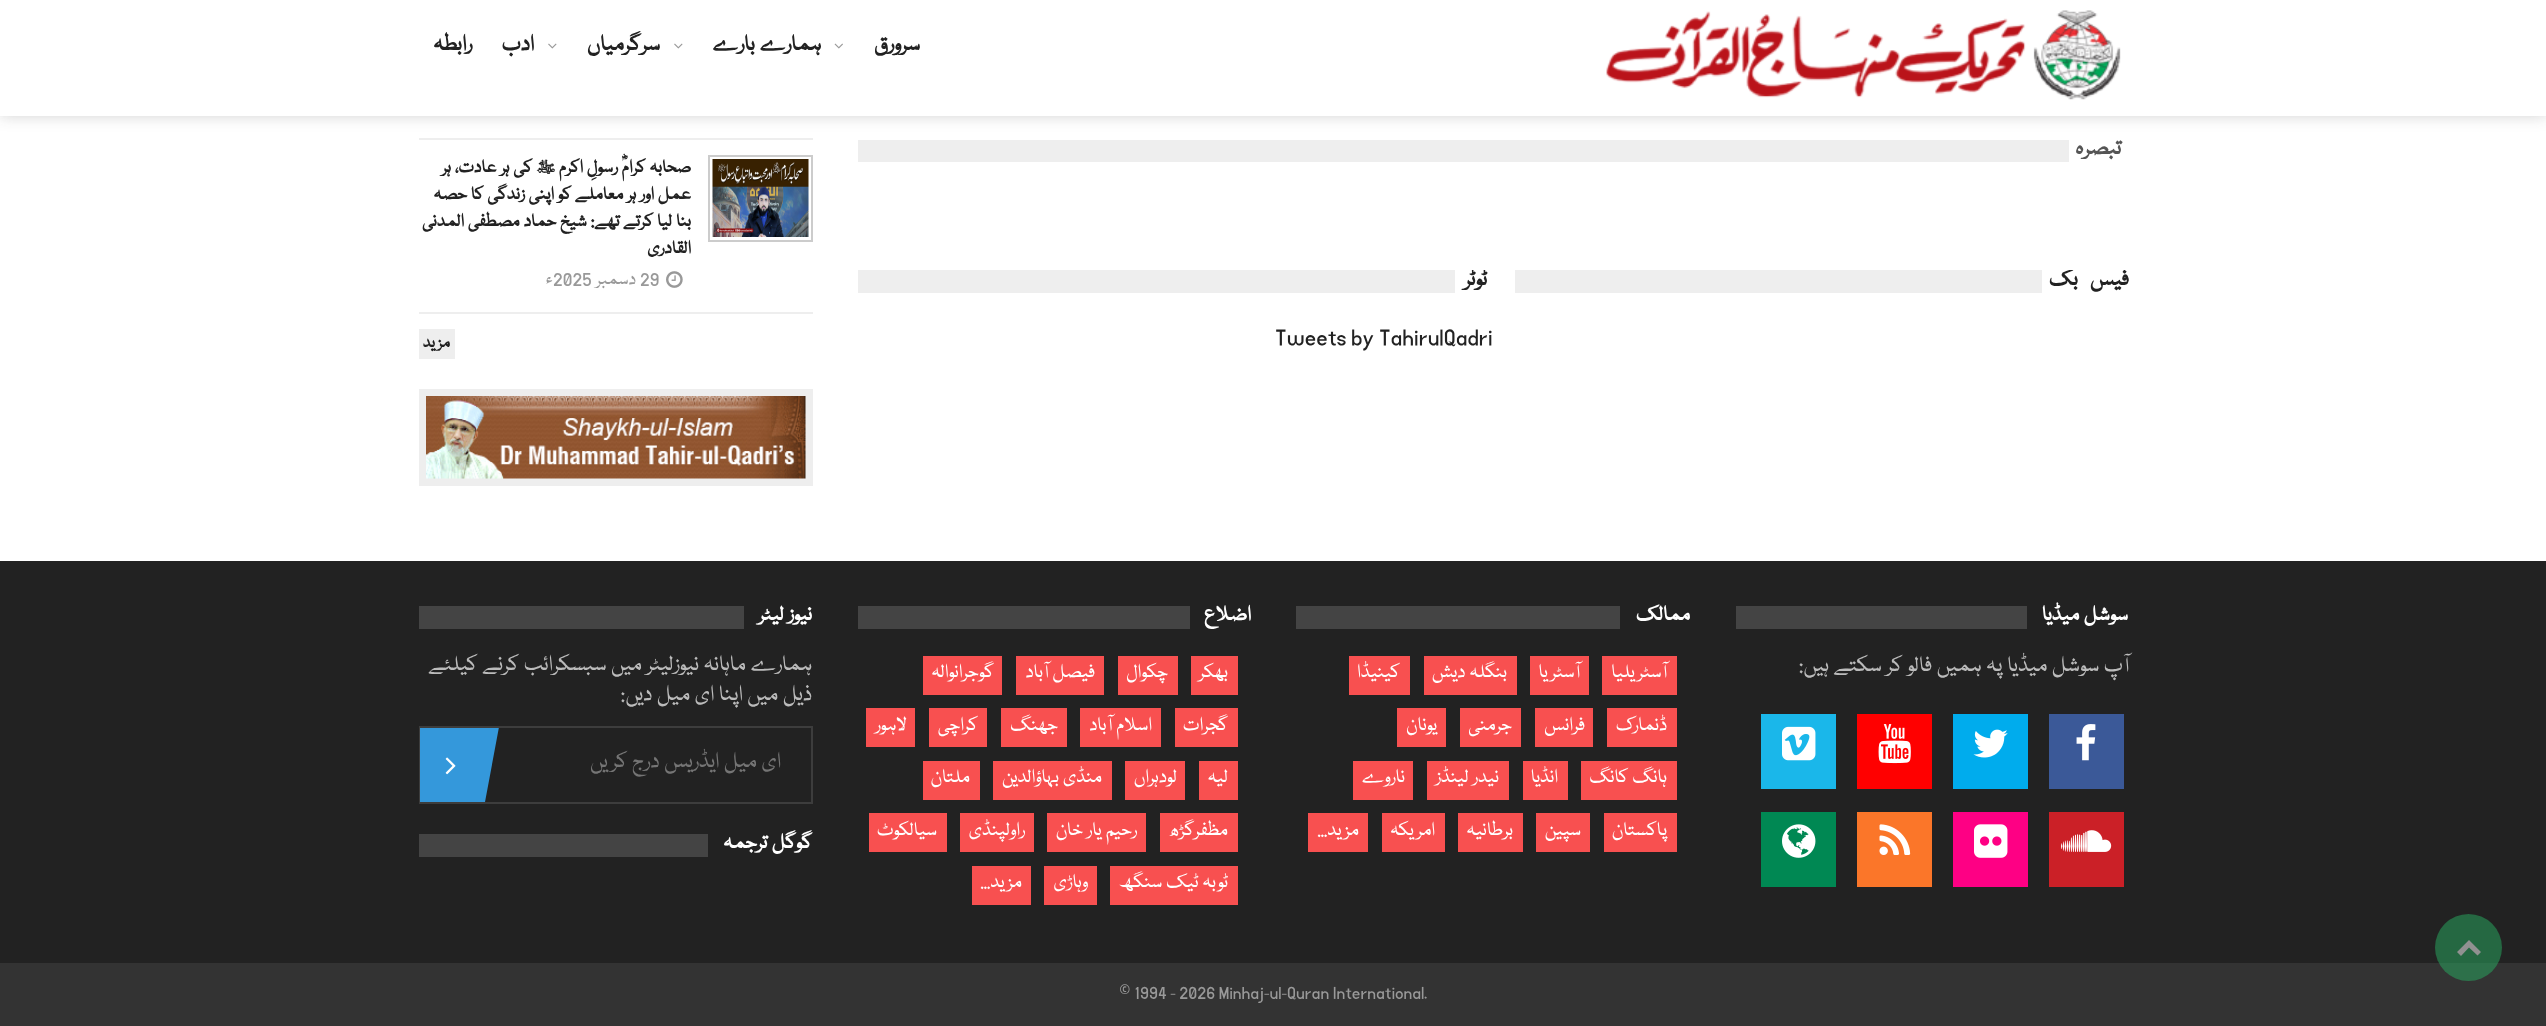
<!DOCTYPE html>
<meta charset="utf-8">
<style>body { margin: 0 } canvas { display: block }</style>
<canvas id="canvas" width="2546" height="1026"></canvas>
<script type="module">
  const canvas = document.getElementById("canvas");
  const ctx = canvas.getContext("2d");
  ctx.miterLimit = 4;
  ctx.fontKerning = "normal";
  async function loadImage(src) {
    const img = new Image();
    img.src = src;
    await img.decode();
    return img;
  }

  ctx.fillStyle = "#ffffff";
  ctx.fillRect(0, 0, 2546, 1026);
  ctx.fillStyle = "#222222";
  ctx.fillRect(0, 561, 2546, 402);
  ctx.fillStyle = "#333333";
  ctx.fillRect(0, 963, 2546, 63);
  ctx.fillStyle = "rgba(39, 174, 97, 0.5)";
  ctx.beginPath();
  ctx.arc(2468.5, 947.5, 33.5, 0, Math.PI * 2);
  ctx.fill();
  ctx.fillStyle = "#919191";
  ctx.beginPath();
  ctx.moveTo(2469, 940);
  ctx.lineTo(2481, 952);
  ctx.lineTo(2477.5, 955.5);
  ctx.lineTo(2469, 947.5);
  ctx.lineTo(2461, 956);
  ctx.lineTo(2457, 952);
  ctx.closePath();
  ctx.fill();
  ctx.fillStyle = "#eeeeee";
  ctx.fillRect(419, 138, 394, 2);
  ctx.fillStyle = "rgba(34, 34, 34, 0.2)";
  ctx.filter = "blur(7.5px)";
  ctx.beginPath();
  ctx.rect(0, 0, 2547, 116);
  ctx.fill();
  ctx.filter = "none";
  ctx.fillStyle = "#ffffff";
  ctx.fillRect(0, 0, 2546, 116);
  ctx.drawImage(await loadImage("img1.png"), 1606, 10, 515, 90);
  ctx.direction = "rtl";
  ctx.font = "bold 24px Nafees";
  ctx.fillStyle = "#222222";
  ctx.fillText("سرورق", 920, 50);
  ctx.drawImage(await loadImage("img2.png"), 834, 43, 9, 6);
  ctx.fillText("ہمارے بارے", 821, 50);
  ctx.drawImage(await loadImage("img3.png"), 674, 43, 9, 6);
  ctx.fillText("سرگرمیاں", 660, 50);
  ctx.drawImage(await loadImage("img3.png"), 548, 43, 9, 6);
  ctx.fillText("ادب", 534, 50);
  ctx.fillText("رابطہ", 472, 50);
  ctx.fillStyle = "#eeeeee";
  ctx.fillRect(858, 140, 1211, 22);
  ctx.letterSpacing = "-1.5px";
  ctx.fillStyle = "#555555";
  ctx.fillText("تبصرہ", 2121, 154);
  ctx.fillStyle = "#eeeeee";
  ctx.fillRect(1515, 270, 527, 23);
  ctx.save();
  ctx.beginPath();
  ctx.rect(858, 270, 1271, 108);
  ctx.clip();
  ctx.wordSpacing = "9px";
  ctx.fillStyle = "#222222";
  ctx.fillText("فیس بک", 2129, 285);
  ctx.restore();
  ctx.fillRect(858, 270, 597, 23);
  ctx.save();
  ctx.beginPath();
  ctx.rect(858, 270, 1271, 108);
  ctx.clip();
  ctx.fillStyle = "#222222";
  ctx.fillText("ٹوٹر", 1487, 285);
  ctx.restore();
  ctx.letterSpacing = "0px";
  ctx.direction = "ltr";
  ctx.font = "24px Nafees";
  ctx.fillStyle = "#222222";
  ctx.fillText("Tweets by TahirulQadri", 1275, 343);
  ctx.fillStyle = "#eeeeee";
  ctx.fillRect(419, 312, 394, 2);
  ctx.strokeStyle = "#cccccc";
  ctx.lineWidth = 2;
  ctx.strokeRect(709, 156, 103, 85);
  ctx.drawImage(await loadImage("img4.png"), 712, 159, 97, 78);
  ctx.direction = "rtl";
  ctx.font = "bold 19.5px Nafees";
  ctx.fillStyle = "#222222";
  ctx.fillText("صحابہ کرامؓ رسولِ اکرم ﷺ کی ہر عادت، ہر", 691, 172);
  ctx.fillText("عمل اور ہر معاملے کو اپنی زندگی کا حصہ", 691, 199);
  ctx.fillText("بنا لیا کرتے تھے: شیخ حماد مصطفی المدنی", 691, 226);
  ctx.fillText("القادری", 691, 253);
  ctx.drawImage(await loadImage("img5.png"), 666, 271, 17, 17);
  ctx.direction = "ltr";
  ctx.font = "19.5px Nafees";
  ctx.fillStyle = "#999999";
  ctx.fillText("29", 640, 284);
  ctx.direction = "rtl";
  ctx.fillText("دسمبر", 636, 284);
  ctx.direction = "ltr";
  ctx.fillText("2025", 553, 284);
  ctx.direction = "rtl";
  ctx.fillText("ء", 553, 284);
  ctx.fillStyle = "#eeeeee";
  ctx.fillRect(419, 329, 36, 30);
  ctx.font = "bold 18px Nafees";
  ctx.fillStyle = "#222222";
  ctx.fillText("مزید", 450, 347);
  ctx.strokeStyle = "#eeeeee";
  ctx.lineWidth = 8;
  ctx.strokeRect(423, 393, 386, 89);
  ctx.drawImage(await loadImage("img6.png"), 426, 396, 380, 83);
  ctx.fillStyle = "#444444";
  ctx.fillRect(1736, 606, 291, 23);
  ctx.font = "bold 22.5px Nafees";
  ctx.fillStyle = "#ffffff";
  ctx.fillText("سوشل میڈیا", 2128, 620);
  ctx.font = "24px Nafees";
  ctx.fillStyle = "#bbbbbb";
  ctx.fillText("آپ سوشل میڈیا پہ ہمیں فالو کر سکتے ہیں:", 2129, 671);
  ctx.fillStyle = "#3b5998";
  ctx.fillRect(2049, 714, 75, 75);
  ctx.drawImage(await loadImage("img7.png"), 2076, 724, 20, 37);
  ctx.fillStyle = "#00aced";
  ctx.fillRect(1953, 714, 75, 75);
  ctx.drawImage(await loadImage("img8.png"), 1973, 729, 35, 29);
  ctx.fillStyle = "#ff0000";
  ctx.fillRect(1857, 714, 75, 75);
  ctx.drawImage(await loadImage("img9.png"), 1878, 724, 33, 40);
  ctx.fillStyle = "#1ab7ea";
  ctx.fillRect(1761, 714, 75, 75);
  ctx.drawImage(await loadImage("img10.png"), 1782, 726, 34, 35);
  ctx.fillStyle = "#cb2027";
  ctx.fillRect(2049, 812, 75, 75);
  ctx.drawImage(await loadImage("img11.png"), 2061, 830, 51, 22);
  ctx.fillStyle = "#fe0084";
  ctx.fillRect(1953, 812, 75, 75);
  ctx.drawImage(await loadImage("img12.png"), 1974, 824, 34, 34);
  ctx.fillStyle = "#fb7629";
  ctx.fillRect(1857, 812, 75, 75);
  ctx.drawImage(await loadImage("img13.png"), 1879, 824, 32, 31);
  ctx.fillStyle = "#008853";
  ctx.fillRect(1761, 812, 75, 75);
  ctx.drawImage(await loadImage("img14.png"), 1782, 824, 34, 34);
  ctx.fillStyle = "#444444";
  ctx.fillRect(1296, 606, 324, 23);
  ctx.font = "bold 22.5px Nafees";
  ctx.fillStyle = "#ffffff";
  ctx.fillText("ممالک", 1690, 620);
  ctx.fillStyle = "#f85050";
  ctx.fillRect(1602, 656, 75, 39);
  ctx.font = "21px Nafees";
  ctx.fillStyle = "#ffffff";
  ctx.fillText("آسٹریلیا", 1667, 677);
  ctx.fillStyle = "#f85050";
  ctx.fillRect(1530, 656, 59, 39);
  ctx.fillStyle = "#ffffff";
  ctx.fillText("آسٹریا", 1580, 677);
  ctx.fillStyle = "#f85050";
  ctx.fillRect(1424, 656, 93, 39);
  ctx.fillStyle = "#ffffff";
  ctx.fillText("بنگلہ دیش", 1507, 677);
  ctx.fillStyle = "#f85050";
  ctx.fillRect(1349, 656, 61, 39);
  ctx.fillStyle = "#ffffff";
  ctx.fillText("کینیڈا", 1400, 677);
  ctx.fillStyle = "#f85050";
  ctx.fillRect(1607, 708, 70, 39);
  ctx.fillStyle = "#ffffff";
  ctx.fillText("ڈنمارک", 1667, 730);
  ctx.fillStyle = "#f85050";
  ctx.fillRect(1535, 708, 58, 39);
  ctx.fillStyle = "#ffffff";
  ctx.fillText("فرانس", 1585, 730);
  ctx.fillStyle = "#f85050";
  ctx.fillRect(1460, 708, 61, 39);
  ctx.fillStyle = "#ffffff";
  ctx.fillText("جرمنی", 1512, 730);
  ctx.fillStyle = "#f85050";
  ctx.fillRect(1397, 708, 49, 39);
  ctx.fillStyle = "#ffffff";
  ctx.fillText("یونان", 1437, 730);
  ctx.fillStyle = "#f85050";
  ctx.fillRect(1581, 761, 96, 39);
  ctx.fillStyle = "#ffffff";
  ctx.fillText("ہانگ کانگ", 1667, 782);
  ctx.fillStyle = "#f85050";
  ctx.fillRect(1523, 761, 45, 39);
  ctx.fillStyle = "#ffffff";
  ctx.fillText("انڈیا", 1558, 782);
  ctx.fillStyle = "#f85050";
  ctx.fillRect(1427, 761, 82, 39);
  ctx.fillStyle = "#ffffff";
  ctx.fillText("نیدر لینڈز", 1499, 782);
  ctx.fillStyle = "#f85050";
  ctx.fillRect(1353, 761, 60, 39);
  ctx.fillStyle = "#ffffff";
  ctx.fillText("ناروے", 1405, 782);
  ctx.fillStyle = "#f85050";
  ctx.fillRect(1604, 813, 73, 39);
  ctx.fillStyle = "#ffffff";
  ctx.fillText("پاکستان", 1667, 835);
  ctx.fillStyle = "#f85050";
  ctx.fillRect(1536, 813, 54, 39);
  ctx.fillStyle = "#ffffff";
  ctx.fillText("سپین", 1581, 835);
  ctx.fillStyle = "#f85050";
  ctx.fillRect(1458, 813, 65, 39);
  ctx.fillStyle = "#ffffff";
  ctx.fillText("برطانیہ", 1513, 835);
  ctx.fillStyle = "#f85050";
  ctx.fillRect(1382, 813, 63, 39);
  ctx.fillStyle = "#ffffff";
  ctx.fillText("امریکہ", 1435, 835);
  ctx.fillStyle = "#f85050";
  ctx.fillRect(1308, 813, 60, 39);
  ctx.fillStyle = "#ffffff";
  ctx.fillText("مزید...", 1359, 835);
  ctx.fillStyle = "#444444";
  ctx.fillRect(858, 606, 332, 23);
  ctx.font = "bold 22.5px Nafees";
  ctx.fillStyle = "#ffffff";
  ctx.fillText("اضلاع", 1251, 620);
  ctx.fillStyle = "#f85050";
  ctx.fillRect(1191, 656, 47, 39);
  ctx.font = "21px Nafees";
  ctx.fillStyle = "#ffffff";
  ctx.fillText("بھکر", 1228, 677);
  ctx.fillStyle = "#f85050";
  ctx.fillRect(1118, 656, 60, 39);
  ctx.fillStyle = "#ffffff";
  ctx.fillText("چکوال", 1168, 677);
  ctx.fillStyle = "#f85050";
  ctx.fillRect(1016, 656, 88, 39);
  ctx.fillStyle = "#ffffff";
  ctx.fillText("فیصل آباد", 1095, 677);
  ctx.fillStyle = "#f85050";
  ctx.fillRect(923, 656, 79, 39);
  ctx.fillStyle = "#ffffff";
  ctx.fillText("گوجرانوالہ", 994, 677);
  ctx.fillStyle = "#f85050";
  ctx.fillRect(1175, 708, 63, 39);
  ctx.fillStyle = "#ffffff";
  ctx.fillText("گجرات", 1228, 730);
  ctx.fillStyle = "#f85050";
  ctx.fillRect(1080, 708, 81, 39);
  ctx.fillStyle = "#ffffff";
  ctx.fillText("اسلام آباد", 1152, 730);
  ctx.fillStyle = "#f85050";
  ctx.fillRect(1001, 708, 66, 39);
  ctx.fillStyle = "#ffffff";
  ctx.fillText("جھنگ", 1058, 730);
  ctx.fillStyle = "#f85050";
  ctx.fillRect(929, 708, 58, 39);
  ctx.fillStyle = "#ffffff";
  ctx.fillText("کراچی", 978, 730);
  ctx.fillStyle = "#f85050";
  ctx.fillRect(866, 708, 49, 39);
  ctx.fillStyle = "#ffffff";
  ctx.fillText("لاہور", 907, 730);
  ctx.fillStyle = "#f85050";
  ctx.fillRect(1199, 761, 39, 39);
  ctx.fillStyle = "#ffffff";
  ctx.fillText("لیہ", 1228, 782);
  ctx.fillStyle = "#f85050";
  ctx.fillRect(1125, 761, 60, 39);
  ctx.fillStyle = "#ffffff";
  ctx.fillText("لودہراں", 1177, 782);
  ctx.fillStyle = "#f85050";
  ctx.fillRect(993, 761, 119, 39);
  ctx.fillStyle = "#ffffff";
  ctx.fillText("منڈی بہاؤالدین", 1102, 782);
  ctx.fillStyle = "#f85050";
  ctx.fillRect(923, 761, 57, 39);
  ctx.fillStyle = "#ffffff";
  ctx.fillText("ملتان", 970, 782);
  ctx.fillStyle = "#f85050";
  ctx.fillRect(1160, 813, 78, 39);
  ctx.fillStyle = "#ffffff";
  ctx.fillText("مظفرگڑھ", 1228, 835);
  ctx.fillStyle = "#f85050";
  ctx.fillRect(1047, 813, 99, 39);
  ctx.fillStyle = "#ffffff";
  ctx.fillText("رحیم یار خان", 1137, 835);
  ctx.fillStyle = "#f85050";
  ctx.fillRect(960, 813, 74, 39);
  ctx.fillStyle = "#ffffff";
  ctx.fillText("راولپنڈی", 1025, 835);
  ctx.fillStyle = "#f85050";
  ctx.fillRect(869, 813, 78, 39);
  ctx.fillStyle = "#ffffff";
  ctx.fillText("سیالکوٹ", 937, 835);
  ctx.fillStyle = "#f85050";
  ctx.fillRect(1110, 866, 128, 39);
  ctx.fillStyle = "#ffffff";
  ctx.fillText("ٹوبہ ٹیک سنگھ", 1228, 887);
  ctx.fillStyle = "#f85050";
  ctx.fillRect(1044, 866, 53, 39);
  ctx.fillStyle = "#ffffff";
  ctx.fillText("وہاڑی", 1088, 887);
  ctx.fillStyle = "#f85050";
  ctx.fillRect(972, 866, 59, 39);
  ctx.fillStyle = "#ffffff";
  ctx.fillText("مزید...", 1022, 887);
  ctx.fillStyle = "#444444";
  ctx.fillRect(419, 606, 325, 23);
  ctx.font = "bold 22.5px Nafees";
  ctx.fillStyle = "#ffffff";
  ctx.fillText("نیوز لیٹر", 812, 620);
  ctx.font = "24px Nafees";
  ctx.fillStyle = "#bbbbbb";
  ctx.fillText("ہمارے ماہانہ نیوزلیٹر میں سبسکرائب کرنے کیلئے", 812, 670);
  ctx.fillText("ذیل میں اپنا ای میل دیں:", 812, 700);
  ctx.strokeStyle = "#3d3d3d";
  ctx.lineWidth = 2;
  ctx.strokeRect(420, 727, 392, 76);
  ctx.fillStyle = "#757575";
  ctx.fillText("ای میل ایڈریس درج کریں", 781, 767);
  ctx.save();
  ctx.beginPath();
  ctx.rect(420, 728, 392, 75);
  ctx.clip();
  ctx.fillStyle = "#3498db";
  ctx.beginPath();
  ctx.moveTo(419, 727);
  ctx.lineTo(499, 727);
  ctx.lineTo(485, 802);
  ctx.lineTo(406, 802);
  ctx.closePath();
  ctx.fill();
  ctx.restore();
  ctx.drawImage(await loadImage("img15.png"), 445, 757, 11, 18);
  ctx.fillStyle = "#444444";
  ctx.fillRect(419, 834, 289, 23);
  ctx.font = "bold 22.5px Nafees";
  ctx.fillStyle = "#ffffff";
  ctx.fillText("گوگل ترجمہ", 812, 848);
  ctx.direction = "ltr";
  ctx.font = "18px Nafees";
  ctx.fillStyle = "#999999";
  ctx.fillText("1994 - 2026 Minhaj-ul-Quran International.", 1134, 997);
  ctx.font = "18px Titillium Web";
  ctx.fillText("©", 1119, 997);
</script>
